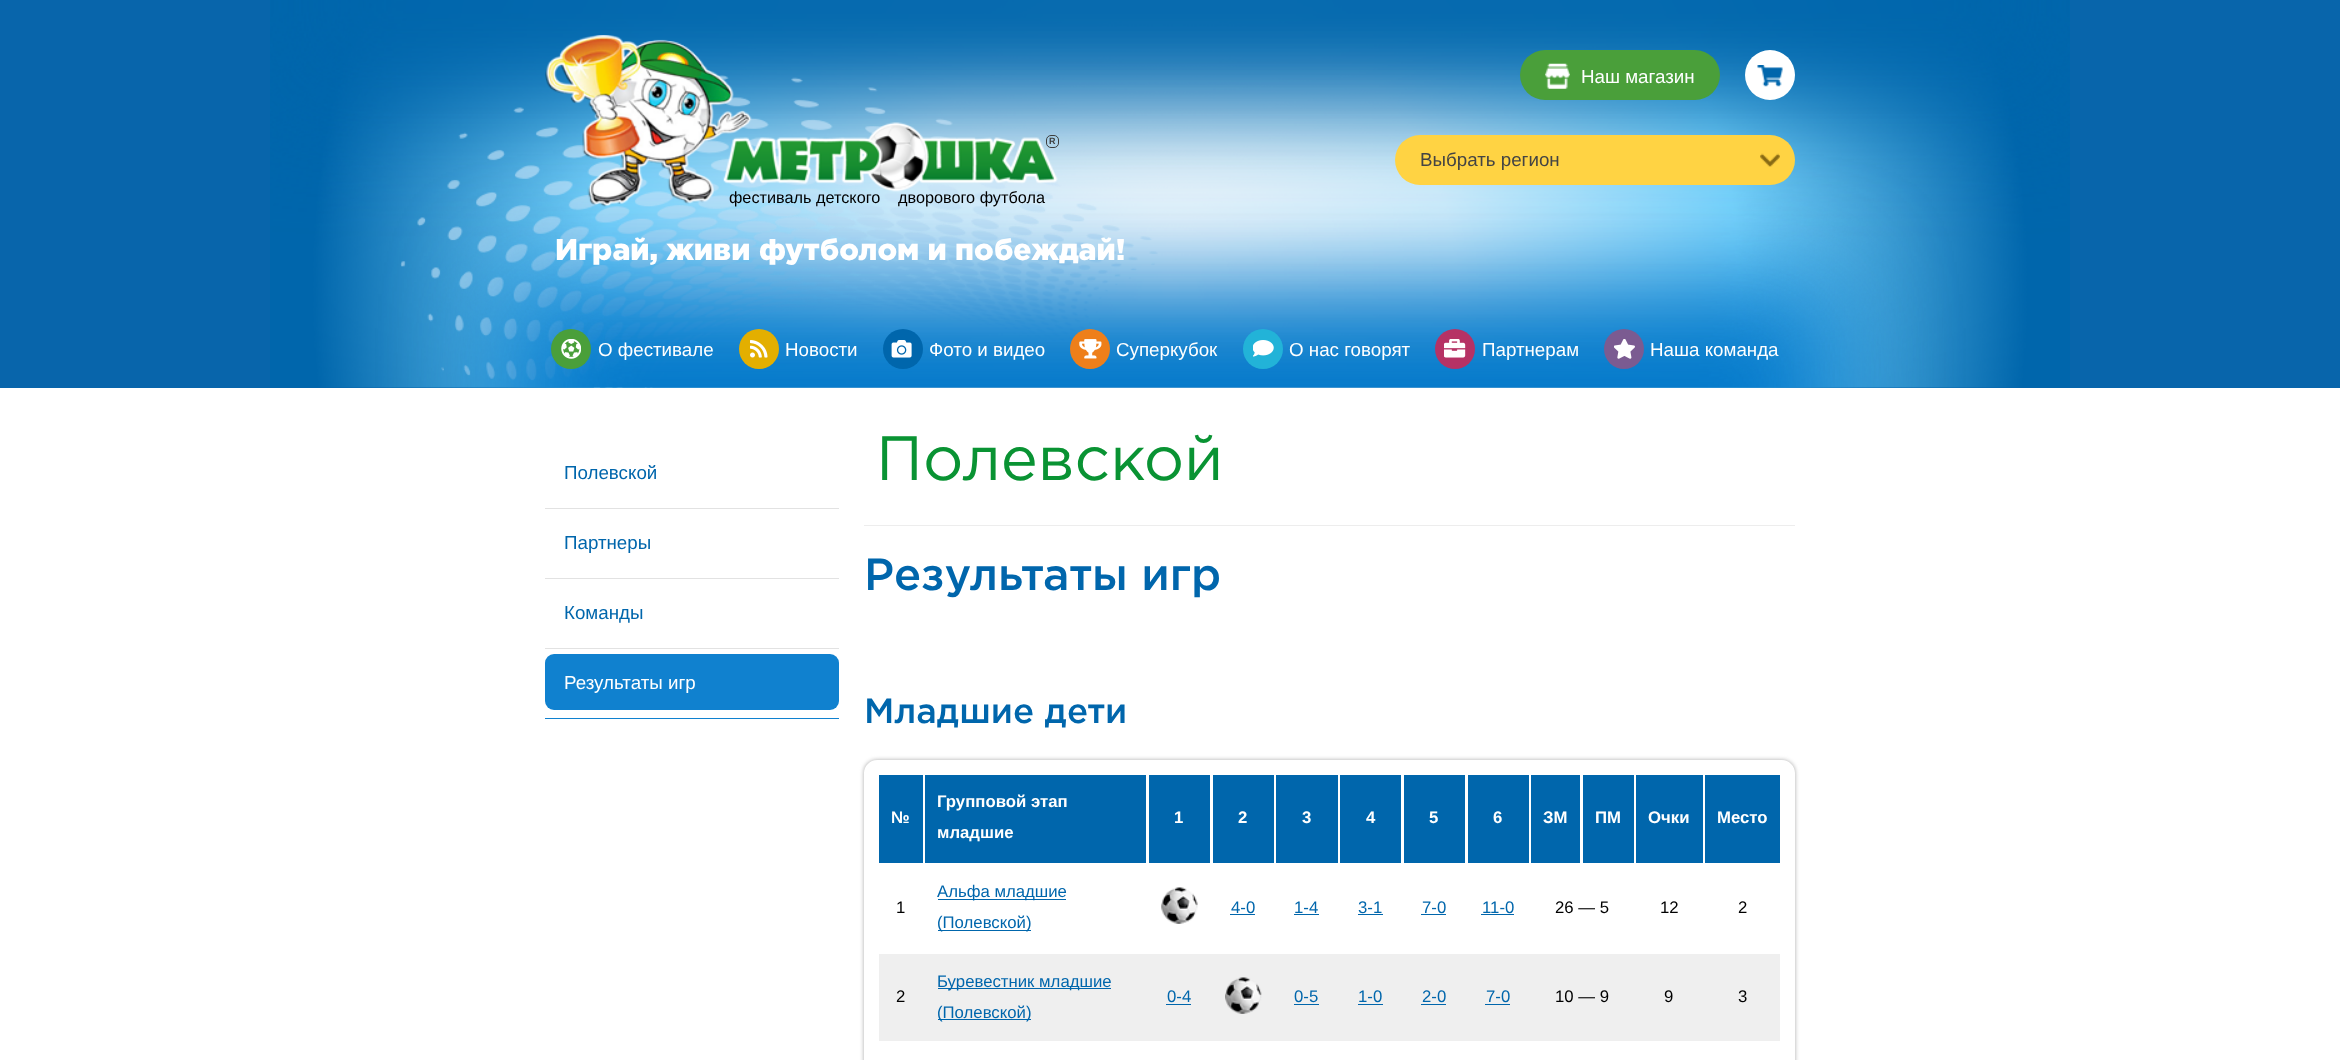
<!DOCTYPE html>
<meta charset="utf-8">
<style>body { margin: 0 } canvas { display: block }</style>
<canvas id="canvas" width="2340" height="1060"></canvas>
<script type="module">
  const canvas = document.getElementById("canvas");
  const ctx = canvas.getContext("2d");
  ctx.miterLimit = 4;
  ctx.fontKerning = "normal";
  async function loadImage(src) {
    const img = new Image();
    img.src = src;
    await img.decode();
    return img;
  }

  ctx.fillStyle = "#ffffff";
  ctx.fillRect(0, 0, 2340, 1060);
  ctx.fillStyle = "#0865ab";
  ctx.fillRect(0, 0, 2340, 388);
  ctx.drawImage(await loadImage("img1.png"), 270, 0, 1800, 388);
  ctx.fillStyle = "#4a9f3a";
  ctx.beginPath();
  ctx.roundRect(1520, 50, 200, 50, 25);
  ctx.fill();
  ctx.drawImage(await loadImage("img2.png"), 1545, 63, 25, 26);
  ctx.font = "18.75px Liberation Sans";
  ctx.fillStyle = "#ffffff";
  ctx.fillText("Наш магазин", 1581, 83);
  ctx.beginPath();
  ctx.arc(1770, 75, 25, 0, Math.PI * 2);
  ctx.fill();
  ctx.drawImage(await loadImage("img3.png"), 1757, 65, 26, 22);
  ctx.fillStyle = "#ffd343";
  ctx.beginPath();
  ctx.roundRect(1395, 135, 400, 50, 25);
  ctx.fill();
  ctx.fillStyle = "#444444";
  ctx.fillText("Выбрать регион", 1420, 166);
  ctx.drawImage(await loadImage("img4.png"), 1760, 153, 20, 14);
  ctx.drawImage(await loadImage("img5.png"), 545, 35, 513, 172);
  ctx.beginPath();
  ctx.roundRect(1046.5, 135.5, 12, 12, 4.5);
  ctx.strokeStyle = "#3d3d3d";
  ctx.stroke();
  ctx.font = "bold 9px Liberation Sans";
  ctx.fillStyle = "#3d3d3d";
  ctx.fillText("R", 1049, 144);
  ctx.font = "16.25px Liberation Sans";
  ctx.fillStyle = "#000000";
  ctx.fillText("фестиваль детского", 729, 203);
  ctx.fillText("дворового футбола", 898, 203);
  ctx.font = "900 30px Gotham";
  ctx.fillStyle = "#ffffff";
  ctx.fillText("Играй, живи футболом и побеждай!", 555, 260);
  ctx.fillStyle = "#4a9f3a";
  ctx.beginPath();
  ctx.arc(571, 349, 20, 0, Math.PI * 2);
  ctx.fill();
  ctx.drawImage(await loadImage("img6.png"), 561, 339, 20, 20);
  ctx.font = "18.75px Liberation Sans";
  ctx.fillStyle = "#ffffff";
  ctx.fillText("О фестивале", 598, 356);
  ctx.fillStyle = "#e3af00";
  ctx.beginPath();
  ctx.arc(759, 349, 20, 0, Math.PI * 2);
  ctx.fill();
  ctx.drawImage(await loadImage("img7.png"), 750, 340, 18, 18);
  ctx.fillStyle = "#ffffff";
  ctx.fillText("Новости", 785, 356);
  ctx.fillStyle = "#0066ac";
  ctx.beginPath();
  ctx.arc(903, 349, 20, 0, Math.PI * 2);
  ctx.fill();
  ctx.drawImage(await loadImage("img8.png"), 891, 340, 21, 18);
  ctx.fillStyle = "#ffffff";
  ctx.fillText("Фото и видео", 929, 356);
  ctx.fillStyle = "#ee7f1a";
  ctx.beginPath();
  ctx.arc(1090, 349, 20, 0, Math.PI * 2);
  ctx.fill();
  ctx.drawImage(await loadImage("img9.png"), 1079, 339, 23, 20);
  ctx.fillStyle = "#ffffff";
  ctx.fillText("Суперкубок", 1116, 356);
  ctx.fillStyle = "#22b3d8";
  ctx.beginPath();
  ctx.arc(1263, 349, 20, 0, Math.PI * 2);
  ctx.fill();
  ctx.drawImage(await loadImage("img10.png"), 1253, 340, 21, 17);
  ctx.fillStyle = "#ffffff";
  ctx.fillText("О нас говорят", 1289, 356);
  ctx.fillStyle = "#b63265";
  ctx.beginPath();
  ctx.arc(1455, 349, 20, 0, Math.PI * 2);
  ctx.fill();
  ctx.drawImage(await loadImage("img11.png"), 1444, 339, 22, 19);
  ctx.fillStyle = "#ffffff";
  ctx.fillText("Партнерам", 1482, 356);
  ctx.fillStyle = "#7b5b91";
  ctx.beginPath();
  ctx.arc(1624, 349, 20, 0, Math.PI * 2);
  ctx.fill();
  ctx.drawImage(await loadImage("img12.png"), 1614, 339, 21, 20);
  ctx.fillStyle = "#ffffff";
  ctx.fillText("Наша команда", 1650, 356);
  ctx.fillStyle = "#e2e2e2";
  ctx.fillRect(545, 508, 294, 1);
  ctx.fillStyle = "#0066ac";
  ctx.fillText("Полевской", 564, 479);
  ctx.fillStyle = "#e2e2e2";
  ctx.fillRect(545, 578, 294, 1);
  ctx.fillStyle = "#0066ac";
  ctx.fillText("Партнеры", 564, 549);
  ctx.fillStyle = "#e2e2e2";
  ctx.fillRect(545, 648, 294, 1);
  ctx.fillStyle = "#0066ac";
  ctx.fillText("Команды", 564, 619);
  ctx.fillStyle = "#1081cf";
  ctx.fillRect(545, 718, 294, 1);
  ctx.beginPath();
  ctx.roundRect(545, 654, 294, 56, 9);
  ctx.fill();
  ctx.fillStyle = "#ffffff";
  ctx.fillText("Результаты игр", 564, 689);
  ctx.fillStyle = "#ededed";
  ctx.fillRect(864, 525, 931, 1);
  ctx.font = "62.5px Gotham";
  ctx.fillStyle = "#099333";
  ctx.fillText("Полевской", 876, 480);
  ctx.font = "500 45px Gotham";
  ctx.fillStyle = "#0066ac";
  ctx.fillText("Результаты игр", 864, 590);
  ctx.font = "500 35px Gotham";
  ctx.fillText("Младшие дети", 864, 723);
  ctx.save();
  ctx.beginPath();
  ctx.moveTo(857, 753);
  ctx.lineTo(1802, 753);
  ctx.lineTo(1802, 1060);
  ctx.lineTo(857, 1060);
  ctx.closePath();
  ctx.moveTo(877, 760);
  ctx.lineTo(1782, 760);
  ctx.bezierCurveTo(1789, 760, 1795, 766, 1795, 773);
  ctx.lineTo(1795, 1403);
  ctx.bezierCurveTo(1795, 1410, 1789, 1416, 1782, 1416);
  ctx.lineTo(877, 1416);
  ctx.bezierCurveTo(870, 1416, 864, 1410, 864, 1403);
  ctx.lineTo(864, 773);
  ctx.bezierCurveTo(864, 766, 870, 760, 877, 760);
  ctx.closePath();
  ctx.clip("evenodd");
  ctx.fillStyle = "#aaaaaa";
  ctx.filter = "blur(2px)";
  ctx.beginPath();
  ctx.roundRect(864, 760, 931, 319, 13);
  ctx.fill();
  ctx.filter = "none";
  ctx.restore();
  ctx.fillRect(879, 775, 44, 88);
  ctx.font = "bold 16.75px Liberation Sans";
  ctx.fillStyle = "#ffffff";
  ctx.fillText("№", 891, 823);
  ctx.fillStyle = "#0066ac";
  ctx.fillRect(925, 775, 221, 88);
  ctx.fillStyle = "#ffffff";
  ctx.fillText("Групповой этап", 937, 807);
  ctx.fillText("младшие", 937, 838);
  ctx.fillStyle = "#0066ac";
  ctx.fillRect(1149, 775, 61, 88);
  ctx.fillStyle = "#ffffff";
  ctx.fillText("1", 1174, 823);
  ctx.fillStyle = "#0066ac";
  ctx.fillRect(1213, 775, 61, 88);
  ctx.fillStyle = "#ffffff";
  ctx.fillText("2", 1238, 823);
  ctx.fillStyle = "#0066ac";
  ctx.fillRect(1276, 775, 62, 88);
  ctx.fillStyle = "#ffffff";
  ctx.fillText("3", 1302, 823);
  ctx.fillStyle = "#0066ac";
  ctx.fillRect(1340, 775, 61, 88);
  ctx.fillStyle = "#ffffff";
  ctx.fillText("4", 1366, 823);
  ctx.fillStyle = "#0066ac";
  ctx.fillRect(1404, 775, 61, 88);
  ctx.fillStyle = "#ffffff";
  ctx.fillText("5", 1429, 823);
  ctx.fillStyle = "#0066ac";
  ctx.fillRect(1468, 775, 61, 88);
  ctx.fillStyle = "#ffffff";
  ctx.fillText("6", 1493, 823);
  ctx.fillStyle = "#0066ac";
  ctx.fillRect(1531, 775, 49, 88);
  ctx.fillStyle = "#ffffff";
  ctx.fillText("ЗМ", 1543, 823);
  ctx.fillStyle = "#0066ac";
  ctx.fillRect(1583, 775, 51, 88);
  ctx.fillStyle = "#ffffff";
  ctx.fillText("ПМ", 1595, 823);
  ctx.fillStyle = "#0066ac";
  ctx.fillRect(1636, 775, 67, 88);
  ctx.fillStyle = "#ffffff";
  ctx.fillText("Очки", 1648, 823);
  ctx.fillStyle = "#0066ac";
  ctx.fillRect(1705, 775, 75, 88);
  ctx.fillStyle = "#ffffff";
  ctx.fillText("Место", 1717, 823);
  ctx.font = "16.75px Liberation Sans";
  ctx.fillStyle = "#000000";
  ctx.fillText("1", 896, 913);
  ctx.fillStyle = "#0066ac";
  ctx.fillRect(938, 899, 128, 1);
  ctx.fillText("Альфа младшие", 937, 897);
  ctx.fillRect(938, 930, 93, 1);
  ctx.fillText("(Полевской)", 937, 928);
  ctx.drawImage(await loadImage("img13.png"), 1161, 887, 37, 37);
  ctx.fillText("4-0", 1231, 913);
  ctx.fillRect(1230, 914, 25, 1);
  ctx.fillText("1-4", 1294, 913);
  ctx.fillRect(1294, 914, 25, 1);
  ctx.fillText("3-1", 1358, 913);
  ctx.fillRect(1358, 914, 25, 1);
  ctx.fillText("7-0", 1422, 913);
  ctx.fillRect(1421, 914, 25, 1);
  ctx.fillText("11-0", 1482, 913);
  ctx.fillRect(1481, 914, 33, 1);
  ctx.fillStyle = "#000000";
  ctx.fillText("26 — 5", 1555, 913);
  ctx.fillText("12", 1660, 913);
  ctx.fillText("2", 1738, 913);
  ctx.fillStyle = "#efefef";
  ctx.fillRect(879, 954, 901, 87);
  ctx.fillStyle = "#000000";
  ctx.fillText("2", 896, 1002);
  ctx.fillStyle = "#0066ac";
  ctx.fillRect(938, 988, 173, 1);
  ctx.fillText("Буревестник младшие", 937, 987);
  ctx.fillRect(938, 1019, 93, 1);
  ctx.fillText("(Полевской)", 937, 1018);
  ctx.fillText("0-4", 1167, 1002);
  ctx.fillRect(1166, 1004, 25, 1);
  ctx.drawImage(await loadImage("img14.png"), 1225, 977, 37, 37);
  ctx.fillText("0-5", 1294, 1002);
  ctx.fillRect(1294, 1004, 25, 1);
  ctx.fillText("1-0", 1358, 1002);
  ctx.fillRect(1358, 1004, 25, 1);
  ctx.fillText("2-0", 1422, 1002);
  ctx.fillRect(1421, 1004, 25, 1);
  ctx.fillText("7-0", 1486, 1002);
  ctx.fillRect(1485, 1004, 25, 1);
  ctx.fillStyle = "#000000";
  ctx.fillText("10 — 9", 1555, 1002);
  ctx.fillText("9", 1664, 1002);
  ctx.fillText("3", 1738, 1002);
</script>
